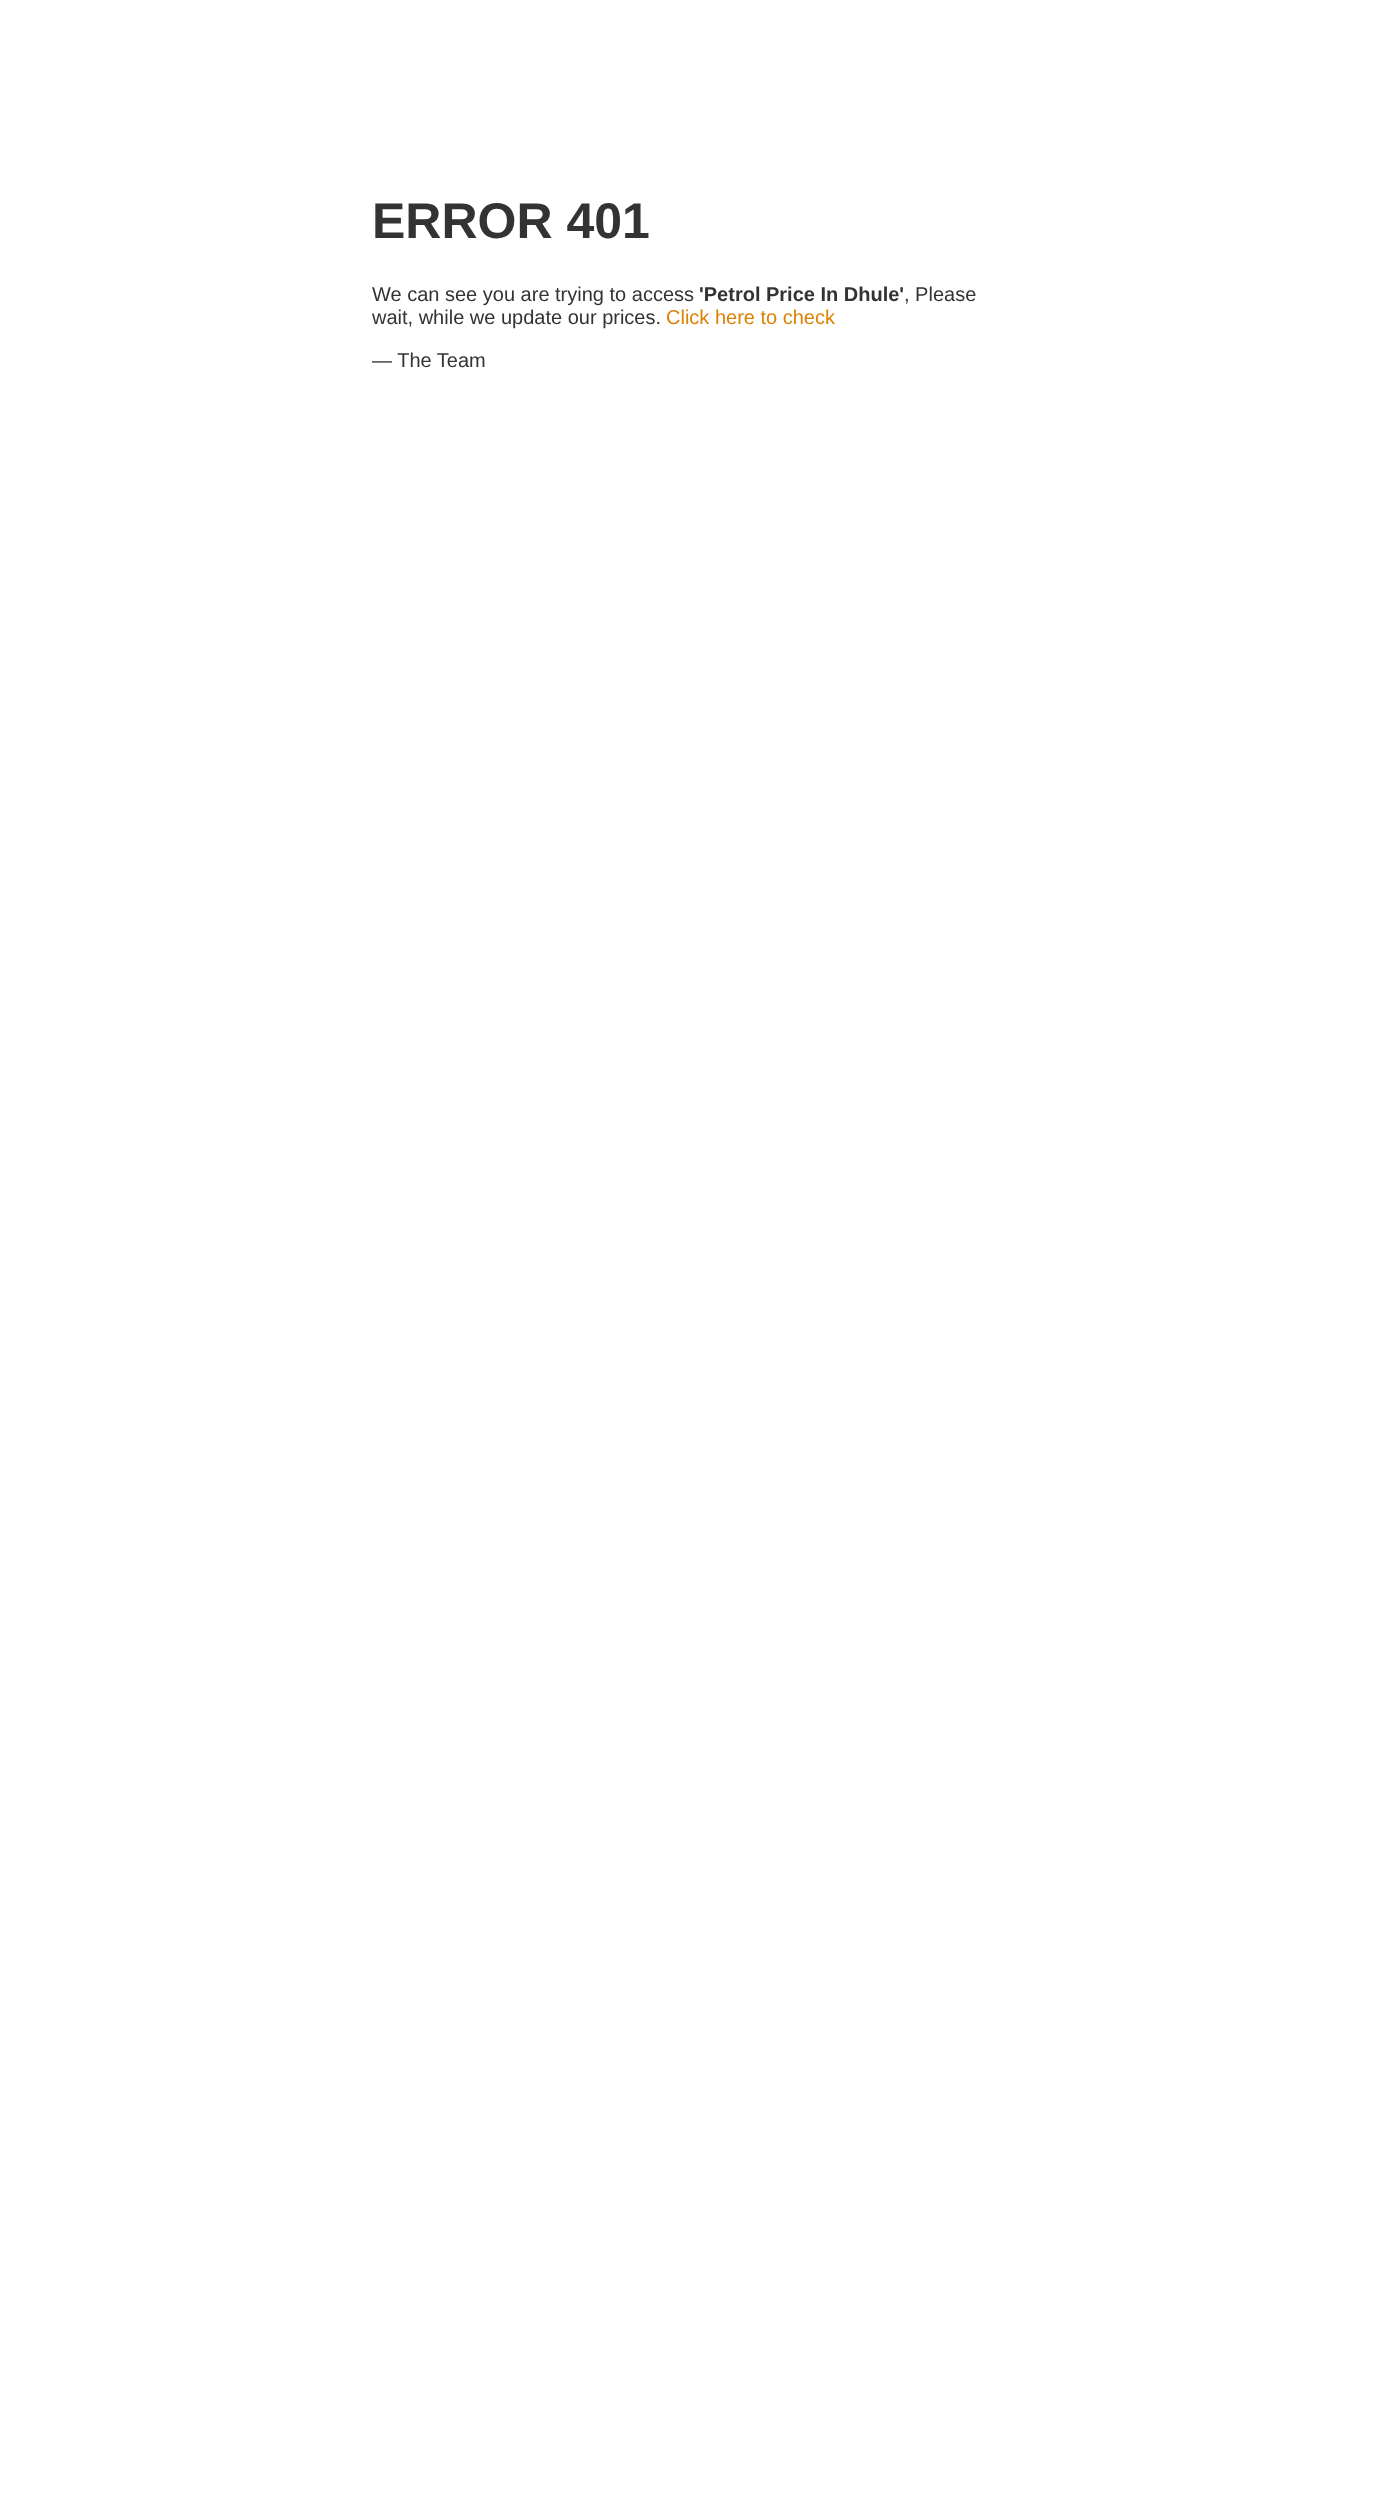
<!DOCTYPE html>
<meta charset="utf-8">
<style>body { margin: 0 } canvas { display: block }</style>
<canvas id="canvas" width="1393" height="2498"></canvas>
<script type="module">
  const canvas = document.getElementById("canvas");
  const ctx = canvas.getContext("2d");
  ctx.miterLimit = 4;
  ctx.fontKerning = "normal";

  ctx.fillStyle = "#ffffff";
  ctx.fillRect(0, 0, 1393, 2498);
  ctx.font = "bold 50px Liberation Sans";
  ctx.fillStyle = "#333333";
  ctx.fillText("ERROR 401", 372, 238);
  ctx.font = "20px Liberation Sans";
  ctx.fillText("We can see you are trying to access", 372, 301);
  ctx.font = "bold 20px Liberation Sans";
  ctx.fillText("'Petrol Price In Dhule'", 699, 301);
  ctx.font = "20px Liberation Sans";
  ctx.fillText(", Please", 904, 301);
  ctx.fillText("wait, while we update our prices.", 372, 324);
  ctx.fillStyle = "#dc8100";
  ctx.fillText("Click here to check", 666, 324);
  ctx.fillStyle = "#333333";
  ctx.fillText("— The Team", 372, 367);
</script>
